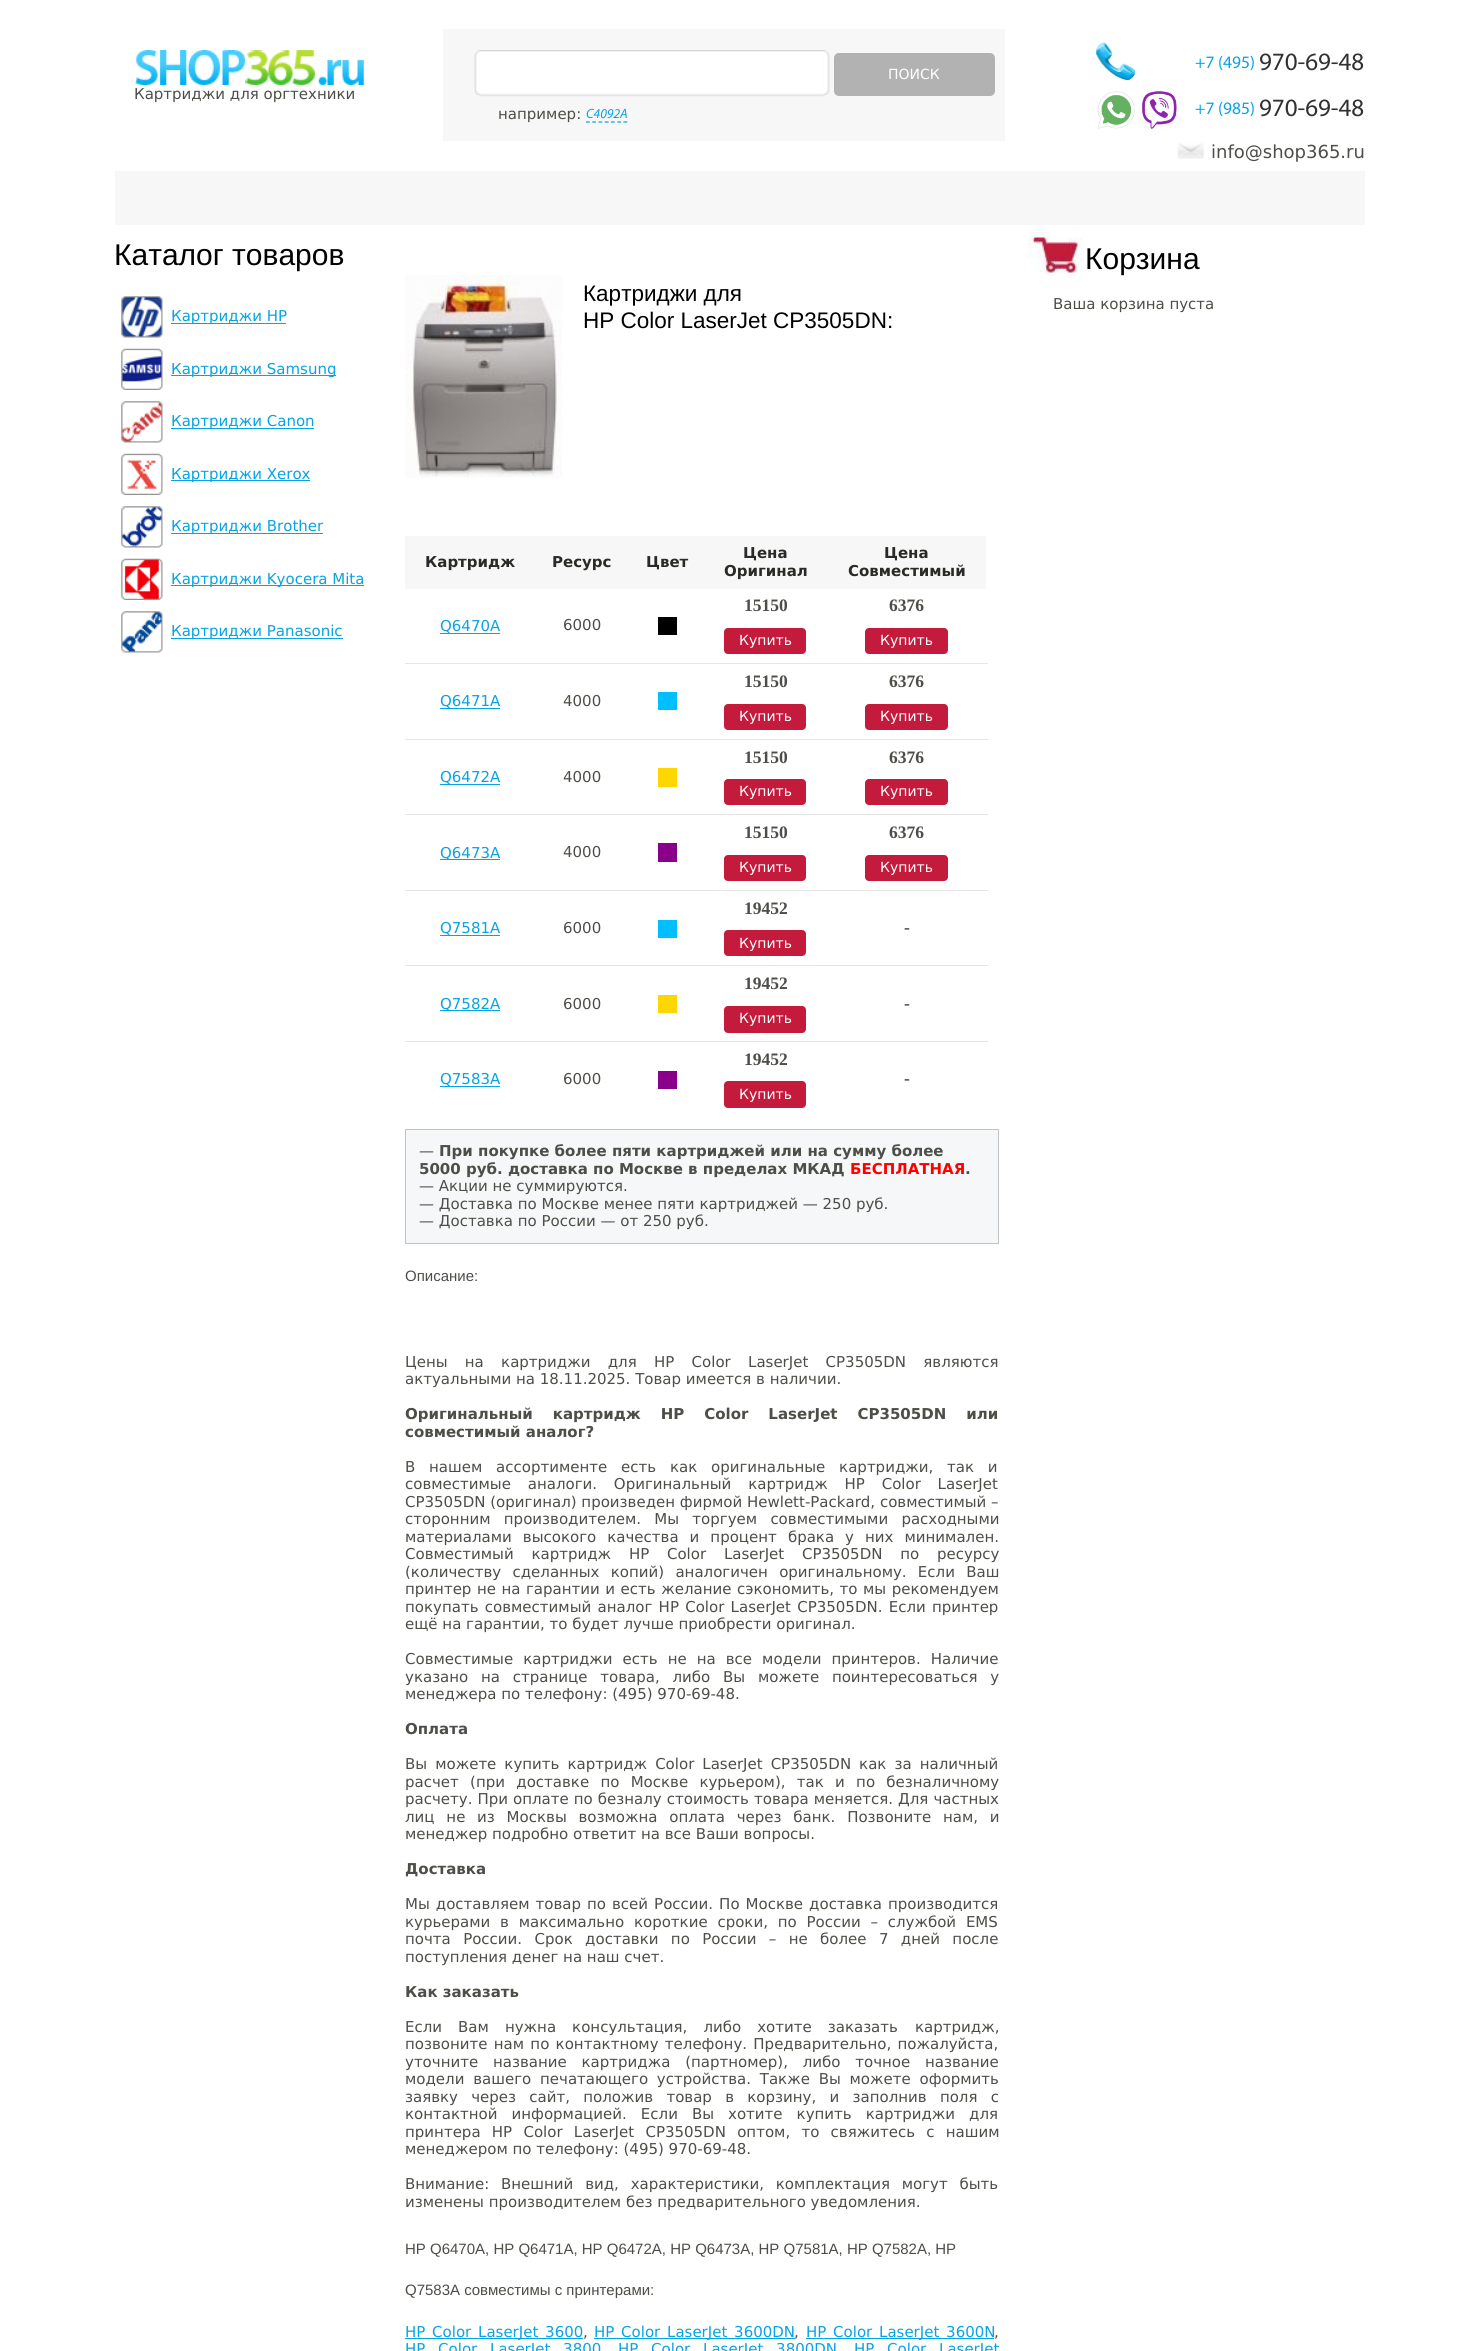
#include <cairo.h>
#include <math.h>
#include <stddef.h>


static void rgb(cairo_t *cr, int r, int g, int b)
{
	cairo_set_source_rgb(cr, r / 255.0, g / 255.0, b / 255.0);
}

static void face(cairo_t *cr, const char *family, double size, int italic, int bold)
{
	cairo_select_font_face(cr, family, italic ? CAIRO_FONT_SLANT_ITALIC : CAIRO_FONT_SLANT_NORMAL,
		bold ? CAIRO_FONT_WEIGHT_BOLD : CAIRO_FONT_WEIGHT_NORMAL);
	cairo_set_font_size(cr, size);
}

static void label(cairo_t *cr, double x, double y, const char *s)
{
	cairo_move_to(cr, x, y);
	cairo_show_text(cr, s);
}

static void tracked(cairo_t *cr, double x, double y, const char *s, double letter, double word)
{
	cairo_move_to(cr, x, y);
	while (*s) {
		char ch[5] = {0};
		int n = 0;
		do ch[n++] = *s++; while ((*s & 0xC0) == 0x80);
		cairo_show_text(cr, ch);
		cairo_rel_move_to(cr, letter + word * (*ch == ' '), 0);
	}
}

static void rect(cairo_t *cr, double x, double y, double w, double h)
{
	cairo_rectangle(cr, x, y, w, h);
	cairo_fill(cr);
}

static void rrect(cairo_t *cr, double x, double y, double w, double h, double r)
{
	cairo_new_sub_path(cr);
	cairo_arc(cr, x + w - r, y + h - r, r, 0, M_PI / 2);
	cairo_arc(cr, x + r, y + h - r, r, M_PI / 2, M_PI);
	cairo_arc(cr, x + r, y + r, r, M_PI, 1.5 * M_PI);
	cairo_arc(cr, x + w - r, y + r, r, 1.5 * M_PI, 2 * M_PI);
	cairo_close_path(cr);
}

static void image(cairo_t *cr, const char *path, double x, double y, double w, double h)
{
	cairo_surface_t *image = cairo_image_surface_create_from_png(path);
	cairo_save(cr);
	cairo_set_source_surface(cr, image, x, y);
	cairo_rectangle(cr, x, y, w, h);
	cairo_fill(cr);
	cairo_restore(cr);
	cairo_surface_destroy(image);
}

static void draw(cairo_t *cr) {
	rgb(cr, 255, 255, 255);
	cairo_paint(cr);
	image(cr, "image0.png", 135, 50, 230, 35);
	face(cr, "DejaVu Sans", 15, 0, 0);
	rgb(cr, 76, 78, 72);
	label(cr, 134, 99, "Картриджи для оргтехники");
	rgb(cr, 247, 247, 247);
	rect(cr, 443, 29, 562, 112);
	image(cr, "image1.png", 474, 50, 350, 47);
	image(cr, "image2.png", 824, 50, 6, 46);
	rgb(cr, 178, 178, 178);
	rrect(cr, 834, 53, 161, 43, 5);
	cairo_fill(cr);
	face(cr, "DejaVu Sans", 14, 0, 0);
	rgb(cr, 255, 255, 255);
	label(cr, 888, 79, "ПОИСК");
	face(cr, "DejaVu Sans", 15, 0, 0);
	rgb(cr, 76, 78, 72);
	label(cr, 498, 119, "например:");
	face(cr, "Myriad", 13.5, 1, 0);
	rgb(cr, 7, 163, 228);
	label(cr, 586, 118, "C4092A");
	cairo_new_path(cr);
	cairo_move_to(cr, 586, 122);
	cairo_line_to(cr, 627.5, 122);
	cairo_set_line_width(cr, 1.2);
	cairo_set_dash(cr, (double[]){3.75, 2.5}, 2, 0);
	cairo_stroke(cr);
	image(cr, "image3.png", 1096, 42, 39, 38);
	face(cr, "Myriad", 17.5, 0, 0);
	label(cr, 1195, 68, "+7 (495)");
	face(cr, "Myriad", 25, 0, 0);
	rgb(cr, 49, 49, 49);
	label(cr, 1259, 70, "970-69-48");
	image(cr, "image4.png", 1097, 91, 38, 38);
	image(cr, "image5.png", 1142, 91, 35, 38);
	face(cr, "Myriad", 17.5, 0, 0);
	rgb(cr, 7, 163, 228);
	label(cr, 1195, 114, "+7 (985)");
	face(cr, "Myriad", 25, 0, 0);
	rgb(cr, 49, 49, 49);
	label(cr, 1259, 116, "970-69-48");
	image(cr, "image6.png", 1177, 142, 27, 17);
	face(cr, "DejaVu Sans", 18, 0, 0);
	rgb(cr, 76, 78, 72);
	label(cr, 1211, 158, "info@shop365.ru");
	rgb(cr, 247, 247, 247);
	rect(cr, 115, 171, 1250, 54);
	face(cr, "Liberation Sans", 30, 0, 0);
	rgb(cr, 0, 0, 0);
	label(cr, 114, 265, "Каталог товаров");
	image(cr, "image7.png", 121, 296, 42, 42);
	rgb(cr, 7, 163, 228);
	rect(cr, 171, 323, 115, 1);
	face(cr, "DejaVu Sans", 15, 0, 0);
	label(cr, 171, 321, "Картриджи HP");
	image(cr, "image8.png", 121, 348, 42, 42);
	rect(cr, 171, 375, 165, 1);
	label(cr, 171, 374, "Картриджи Samsung");
	image(cr, "image9.png", 121, 401, 42, 42);
	rect(cr, 171, 428, 143, 1);
	label(cr, 171, 426, "Картриджи Canon");
	image(cr, "image10.png", 121, 453, 42, 42);
	rect(cr, 171, 480, 139, 1);
	label(cr, 171, 479, "Картриджи Xerox");
	image(cr, "image11.png", 121, 506, 42, 42);
	rect(cr, 171, 533, 152, 1);
	label(cr, 171, 531, "Картриджи Brother");
	image(cr, "image12.png", 121, 558, 42, 42);
	rect(cr, 171, 585, 193, 1);
	label(cr, 171, 584, "Картриджи Kyocera Mita");
	image(cr, "image13.png", 121, 611, 42, 42);
	rect(cr, 171, 638, 172, 1);
	label(cr, 171, 636, "Картриджи Panasonic");
	image(cr, "image14.png", 405, 275, 157, 203);
	face(cr, "Liberation Sans", 22.5, 0, 0);
	rgb(cr, 0, 0, 0);
	label(cr, 583, 301, "Картриджи для");
	label(cr, 583, 328, "HP Color LaserJet CP3505DN:");
	rgb(cr, 247, 247, 247);
	rect(cr, 405, 536, 581, 53);
	face(cr, "DejaVu Sans", 15, 0, 1);
	rgb(cr, 42, 43, 39);
	label(cr, 425, 567, "Картридж");
	label(cr, 552, 567, "Ресурс");
	label(cr, 646, 567, "Цвет");
	label(cr, 743, 558, "Цена");
	label(cr, 724, 576, "Оригинал");
	label(cr, 884, 558, "Цена");
	label(cr, 848, 576, "Совместимый");
	face(cr, "DejaVu Sans", 15, 0, 0);
	rgb(cr, 7, 163, 228);
	label(cr, 440, 631, "Q6470A");
	rect(cr, 440, 633, 60, 1);
	rgb(cr, 76, 78, 72);
	label(cr, 563, 630, "6000");
	rgb(cr, 0, 0, 0);
	rect(cr, 658, 617, 19, 18);
	face(cr, "Liberation Serif", 17.5, 0, 1);
	rgb(cr, 76, 78, 72);
	label(cr, 744, 611, "15150");
	rgb(cr, 196, 27, 60);
	rrect(cr, 724, 628, 82, 26, 4);
	cairo_fill(cr);
	face(cr, "DejaVu Sans", 14, 0, 0);
	rgb(cr, 255, 255, 255);
	label(cr, 739, 645, "Купить");
	face(cr, "Liberation Serif", 17.5, 0, 1);
	rgb(cr, 76, 78, 72);
	label(cr, 889, 611, "6376");
	rgb(cr, 196, 27, 60);
	rrect(cr, 865, 628, 83, 26, 4);
	cairo_fill(cr);
	face(cr, "DejaVu Sans", 14, 0, 0);
	rgb(cr, 255, 255, 255);
	label(cr, 880, 645, "Купить");
	rgb(cr, 230, 230, 230);
	rect(cr, 405, 663, 583, 1);
	face(cr, "DejaVu Sans", 15, 0, 0);
	rgb(cr, 7, 163, 228);
	label(cr, 440, 706, "Q6471A");
	rect(cr, 440, 708, 60, 1);
	rgb(cr, 76, 78, 72);
	label(cr, 563, 706, "4000");
	rgb(cr, 0, 191, 255);
	rect(cr, 658, 692, 19, 18);
	face(cr, "Liberation Serif", 17.5, 0, 1);
	rgb(cr, 76, 78, 72);
	label(cr, 744, 687, "15150");
	rgb(cr, 196, 27, 60);
	rrect(cr, 724, 704, 82, 26, 4);
	cairo_fill(cr);
	face(cr, "DejaVu Sans", 14, 0, 0);
	rgb(cr, 255, 255, 255);
	label(cr, 739, 721, "Купить");
	face(cr, "Liberation Serif", 17.5, 0, 1);
	rgb(cr, 76, 78, 72);
	label(cr, 889, 687, "6376");
	rgb(cr, 196, 27, 60);
	rrect(cr, 865, 704, 83, 26, 4);
	cairo_fill(cr);
	face(cr, "DejaVu Sans", 14, 0, 0);
	rgb(cr, 255, 255, 255);
	label(cr, 880, 721, "Купить");
	rgb(cr, 230, 230, 230);
	rect(cr, 405, 739, 583, 1);
	face(cr, "DejaVu Sans", 15, 0, 0);
	rgb(cr, 7, 163, 228);
	label(cr, 440, 782, "Q6472A");
	rect(cr, 440, 784, 60, 1);
	rgb(cr, 76, 78, 72);
	label(cr, 563, 782, "4000");
	rgb(cr, 255, 215, 0);
	rect(cr, 658, 768, 19, 19);
	face(cr, "Liberation Serif", 17.5, 0, 1);
	rgb(cr, 76, 78, 72);
	label(cr, 744, 763, "15150");
	rgb(cr, 196, 27, 60);
	rrect(cr, 724, 779, 82, 26, 4);
	cairo_fill(cr);
	face(cr, "DejaVu Sans", 14, 0, 0);
	rgb(cr, 255, 255, 255);
	label(cr, 739, 796, "Купить");
	face(cr, "Liberation Serif", 17.5, 0, 1);
	rgb(cr, 76, 78, 72);
	label(cr, 889, 763, "6376");
	rgb(cr, 196, 27, 60);
	rrect(cr, 865, 779, 83, 26, 4);
	cairo_fill(cr);
	face(cr, "DejaVu Sans", 14, 0, 0);
	rgb(cr, 255, 255, 255);
	label(cr, 880, 796, "Купить");
	rgb(cr, 230, 230, 230);
	rect(cr, 405, 814, 583, 1);
	rgb(cr, 7, 163, 228);
	rect(cr, 440, 859, 60, 1);
	face(cr, "DejaVu Sans", 15, 0, 0);
	label(cr, 440, 858, "Q6473A");
	rgb(cr, 76, 78, 72);
	label(cr, 563, 857, "4000");
	rgb(cr, 139, 0, 139);
	rect(cr, 658, 843, 19, 19);
	face(cr, "Liberation Serif", 17.5, 0, 1);
	rgb(cr, 76, 78, 72);
	label(cr, 744, 838, "15150");
	rgb(cr, 196, 27, 60);
	rrect(cr, 724, 855, 82, 26, 4);
	cairo_fill(cr);
	face(cr, "DejaVu Sans", 14, 0, 0);
	rgb(cr, 255, 255, 255);
	label(cr, 739, 872, "Купить");
	face(cr, "Liberation Serif", 17.5, 0, 1);
	rgb(cr, 76, 78, 72);
	label(cr, 889, 838, "6376");
	rgb(cr, 196, 27, 60);
	rrect(cr, 865, 855, 83, 26, 4);
	cairo_fill(cr);
	face(cr, "DejaVu Sans", 14, 0, 0);
	rgb(cr, 255, 255, 255);
	label(cr, 880, 872, "Купить");
	rgb(cr, 230, 230, 230);
	rect(cr, 405, 890, 583, 1);
	face(cr, "DejaVu Sans", 15, 0, 0);
	rgb(cr, 7, 163, 228);
	label(cr, 440, 933, "Q7581A");
	rect(cr, 440, 935, 60, 1);
	rgb(cr, 76, 78, 72);
	label(cr, 563, 933, "6000");
	rgb(cr, 0, 191, 255);
	rect(cr, 658, 920, 19, 18);
	face(cr, "Liberation Serif", 17.5, 0, 1);
	rgb(cr, 76, 78, 72);
	label(cr, 744, 914, "19452");
	rgb(cr, 196, 27, 60);
	rrect(cr, 724, 930, 82, 26, 4);
	cairo_fill(cr);
	face(cr, "DejaVu Sans", 14, 0, 0);
	rgb(cr, 255, 255, 255);
	label(cr, 739, 948, "Купить");
	face(cr, "Liberation Serif", 17.5, 0, 1);
	rgb(cr, 76, 78, 72);
	label(cr, 904, 933, "-");
	rgb(cr, 230, 230, 230);
	rect(cr, 405, 965, 583, 1);
	rgb(cr, 7, 163, 228);
	rect(cr, 440, 1010, 60, 1);
	face(cr, "DejaVu Sans", 15, 0, 0);
	label(cr, 440, 1009, "Q7582A");
	rgb(cr, 76, 78, 72);
	label(cr, 563, 1009, "6000");
	rgb(cr, 255, 215, 0);
	rect(cr, 658, 995, 19, 18);
	face(cr, "Liberation Serif", 17.5, 0, 1);
	rgb(cr, 76, 78, 72);
	label(cr, 744, 989, "19452");
	rgb(cr, 196, 27, 60);
	rrect(cr, 724, 1006, 82, 27, 4);
	cairo_fill(cr);
	face(cr, "DejaVu Sans", 14, 0, 0);
	rgb(cr, 255, 255, 255);
	label(cr, 739, 1023, "Купить");
	face(cr, "Liberation Serif", 17.5, 0, 1);
	rgb(cr, 76, 78, 72);
	label(cr, 904, 1009, "-");
	rgb(cr, 230, 230, 230);
	rect(cr, 405, 1041, 583, 1);
	face(cr, "DejaVu Sans", 15, 0, 0);
	rgb(cr, 7, 163, 228);
	label(cr, 440, 1084, "Q7583A");
	rect(cr, 440, 1086, 60, 1);
	rgb(cr, 76, 78, 72);
	label(cr, 563, 1084, "6000");
	rgb(cr, 139, 0, 139);
	rect(cr, 658, 1071, 19, 18);
	face(cr, "Liberation Serif", 17.5, 0, 1);
	rgb(cr, 76, 78, 72);
	label(cr, 744, 1065, "19452");
	rgb(cr, 196, 27, 60);
	rrect(cr, 724, 1081, 82, 27, 4);
	cairo_fill(cr);
	face(cr, "DejaVu Sans", 14, 0, 0);
	rgb(cr, 255, 255, 255);
	label(cr, 739, 1099, "Купить");
	face(cr, "Liberation Serif", 17.5, 0, 1);
	rgb(cr, 76, 78, 72);
	label(cr, 904, 1084, "-");
	rgb(cr, 246, 247, 248);
	cairo_rectangle(cr, 405.5, 1129.5, 593, 114);
	cairo_fill_preserve(cr);
	rgb(cr, 194, 195, 197);
	cairo_set_line_width(cr, 1);
	cairo_set_dash(cr, NULL, 0, 0);
	cairo_stroke(cr);
	face(cr, "DejaVu Sans", 15, 0, 0);
	rgb(cr, 76, 78, 72);
	label(cr, 419, 1156, "—");
	face(cr, "DejaVu Sans", 15, 0, 1);
	label(cr, 439, 1156, "При покупке более пяти картриджей или на сумму более");
	label(cr, 419, 1174, "5000 руб. доставка по Москве в пределах МКАД");
	rgb(cr, 255, 0, 0);
	label(cr, 850, 1174, "БЕСПЛАТНАЯ");
	rgb(cr, 76, 78, 72);
	label(cr, 965, 1174, ".");
	face(cr, "DejaVu Sans", 15, 0, 0);
	label(cr, 419, 1191, "— Акции не суммируются.");
	label(cr, 419, 1209, "— Доставка по Москве менее пяти картриджей — 250 руб.");
	label(cr, 419, 1226, "— Доставка по России — от 250 руб.");
	face(cr, "Liberation Sans", 15, 0, 0);
	label(cr, 405, 1281, "Описание:");
	face(cr, "DejaVu Sans", 15, 0, 0);
	tracked(cr, 405, 1367, "Цены на картриджи для HP Color LaserJet CP3505DN являются", 0, 12.5);
	label(cr, 405, 1384, "актуальными на 18.11.2025. Товар имеется в наличии.");
	face(cr, "DejaVu Sans", 15, 0, 1);
	tracked(cr, 405, 1419, "Оригинальный картридж HP Color LaserJet CP3505DN или", 0, 14.75);
	label(cr, 405, 1437, "совместимый аналог?");
	face(cr, "DejaVu Sans", 15, 0, 0);
	tracked(cr, 405, 1472, "В нашем ассортименте есть как оригинальные картриджи, так и", 0, 9);
	tracked(cr, 405, 1489, "совместимые аналоги. Оригинальный картридж HP Color LaserJet", 0, 12);
	label(cr, 405, 1507, "CP3505DN (оригинал) произведен фирмой Hewlett-Packard, совместимый –");
	tracked(cr, 405, 1524, "сторонним производителем. Мы торгуем совместимыми расходными", 0, 8.5);
	tracked(cr, 405, 1542, "материалами высокого качества и процент брака у них минимален.", 0, 6.25);
	tracked(cr, 405, 1559, "Совместимый картридж HP Color LaserJet CP3505DN по ресурсу", 0, 13);
	tracked(cr, 405, 1577, "(количеству сделанных копий) аналогичен оригинальному. Если Ваш", 0, 6.5);
	tracked(cr, 405, 1594, "принтер не на гарантии и есть желание сэкономить, то мы рекомендуем", 0, 0.75);
	tracked(cr, 405, 1612, "покупать совместимый аналог HP Color LaserJet CP3505DN. Если принтер", 0, 1.5);
	label(cr, 405, 1629, "ещё на гарантии, то будет лучше приобрести оригинал.");
	tracked(cr, 405, 1664, "Совместимые картриджи есть не на все модели принтеров. Наличие", 0, 5.25);
	tracked(cr, 405, 1682, "указано на странице товара, либо Вы можете поинтересоваться у", 0, 8);
	label(cr, 405, 1699, "менеджера по телефону: (495) 970-69-48.");
	face(cr, "DejaVu Sans", 15, 0, 1);
	label(cr, 405, 1734, "Оплата");
	face(cr, "DejaVu Sans", 15, 0, 0);
	tracked(cr, 405, 1769, "Вы можете купить картридж Color LaserJet CP3505DN как за наличный", 0, 3.25);
	tracked(cr, 405, 1787, "расчет (при доставке по Москве курьером), так и по безналичному", 0, 6.5);
	tracked(cr, 405, 1804, "расчету. При оплате по безналу стоимость товара меняется. Для частных", 0, 0.25);
	tracked(cr, 405, 1822, "лиц не из Москвы возможна оплата через банк. Позвоните нам, и", 0, 7);
	label(cr, 405, 1839, "менеджер подробно ответит на все Ваши вопросы.");
	face(cr, "DejaVu Sans", 15, 0, 1);
	label(cr, 405, 1874, "Доставка");
	face(cr, "DejaVu Sans", 15, 0, 0);
	tracked(cr, 405, 1909, "Мы доставляем товар по всей России. По Москве доставка производится", 0, 1.25);
	tracked(cr, 405, 1927, "курьерами в максимально короткие сроки, по России – службой EMS", 0, 5);
	tracked(cr, 405, 1944, "почта России. Срок доставки по России – не более 7 дней после", 0, 7.6);
	label(cr, 405, 1962, "поступления денег на наш счет.");
	face(cr, "DejaVu Sans", 15, 0, 1);
	label(cr, 405, 1997, "Как заказать");
	face(cr, "DejaVu Sans", 15, 0, 0);
	tracked(cr, 405, 2032, "Если Вам нужна консультация, либо хотите заказать", 0, 11.25);
	label(cr, 915, 2032, "картридж,");
	tracked(cr, 405, 2049, "позвоните нам по контактному телефону. Предварительно, пожалуйста,", 0, 1.5);
	tracked(cr, 405, 2067, "уточните название картриджа (партномер), либо точное название", 0, 10);
	tracked(cr, 405, 2084, "модели вашего печатающего устройства. Также Вы можете оформить", 0, 4);
	tracked(cr, 405, 2102, "заявку через сайт, положив товар в корзину, и заполнив поля с", 0, 8.5);
	tracked(cr, 405, 2119, "контактной информацией. Если Вы хотите купить картриджи для", 0, 9.25);
	tracked(cr, 405, 2137, "принтера HP Color LaserJet CP3505DN оптом, то свяжитесь с нашим", 0, 6.5);
	label(cr, 405, 2154, "менеджером по телефону: (495) 970-69-48.");
	label(cr, 405, 2189, "Внимание:");
	tracked(cr, 501, 2189, "Внешний вид, характеристики, комплектация могут быть", 0, 7);
	label(cr, 405, 2207, "изменены производителем без предварительного уведомления.");
	face(cr, "Liberation Sans", 15, 0, 0);
	label(cr, 405, 2254, "HP Q6470A, HP Q6471A, HP Q6472A, HP Q6473A, HP Q7581A, HP Q7582A, HP");
	label(cr, 405, 2295, "Q7583A совместимы с принтерами:");
	rgb(cr, 7, 163, 228);
	rect(cr, 405, 2338, 178, 1);
	face(cr, "DejaVu Sans", 15, 0, 0);
	tracked(cr, 405, 2337, "HP Color LaserJet 3600", 0, 2);
	rgb(cr, 76, 78, 72);
	label(cr, 583, 2337, ",");
	rgb(cr, 7, 163, 228);
	rect(cr, 594, 2338, 201, 1);
	tracked(cr, 594, 2337, "HP Color LaserJet 3600DN", 0, 2);
	rgb(cr, 76, 78, 72);
	label(cr, 794, 2337, ",");
	rgb(cr, 7, 163, 228);
	rect(cr, 806, 2338, 188, 1);
	tracked(cr, 806, 2337, "HP Color LaserJet 3600N", 0, 2);
	rgb(cr, 76, 78, 72);
	label(cr, 994, 2337, ",");
	rgb(cr, 7, 163, 228);
	tracked(cr, 405, 2354, "HP Color LaserJet 3800", 0, 8);
	tracked(cr, 618, 2354, "HP Color LaserJet 3800DN", 0, 8);
	tracked(cr, 854, 2354, "HP Color LaserJet", 0, 8);
	image(cr, "image15.png", 1027, 237, 56, 36);
	face(cr, "Liberation Sans", 30, 0, 0);
	rgb(cr, 0, 0, 0);
	label(cr, 1085, 269, "Корзина");
	face(cr, "DejaVu Sans", 15, 0, 0);
	rgb(cr, 76, 78, 72);
	label(cr, 1053, 309, "Ваша корзина пуста");
}

int main(void) {
	cairo_surface_t *surface = cairo_image_surface_create(CAIRO_FORMAT_RGB24, 1478, 2351);
	cairo_t *cr = cairo_create(surface);
	cairo_font_options_t *options = cairo_font_options_create();
	cairo_font_options_set_hint_metrics(options, CAIRO_HINT_METRICS_OFF);
	cairo_font_options_set_hint_style(options, CAIRO_HINT_STYLE_NONE);
	cairo_set_font_options(cr, options);
	cairo_set_miter_limit(cr, 4);
	draw(cr);
	cairo_surface_write_to_png(surface, "render.png");
	cairo_font_options_destroy(options);
	cairo_destroy(cr);
	cairo_surface_destroy(surface);
	return 0;
}
